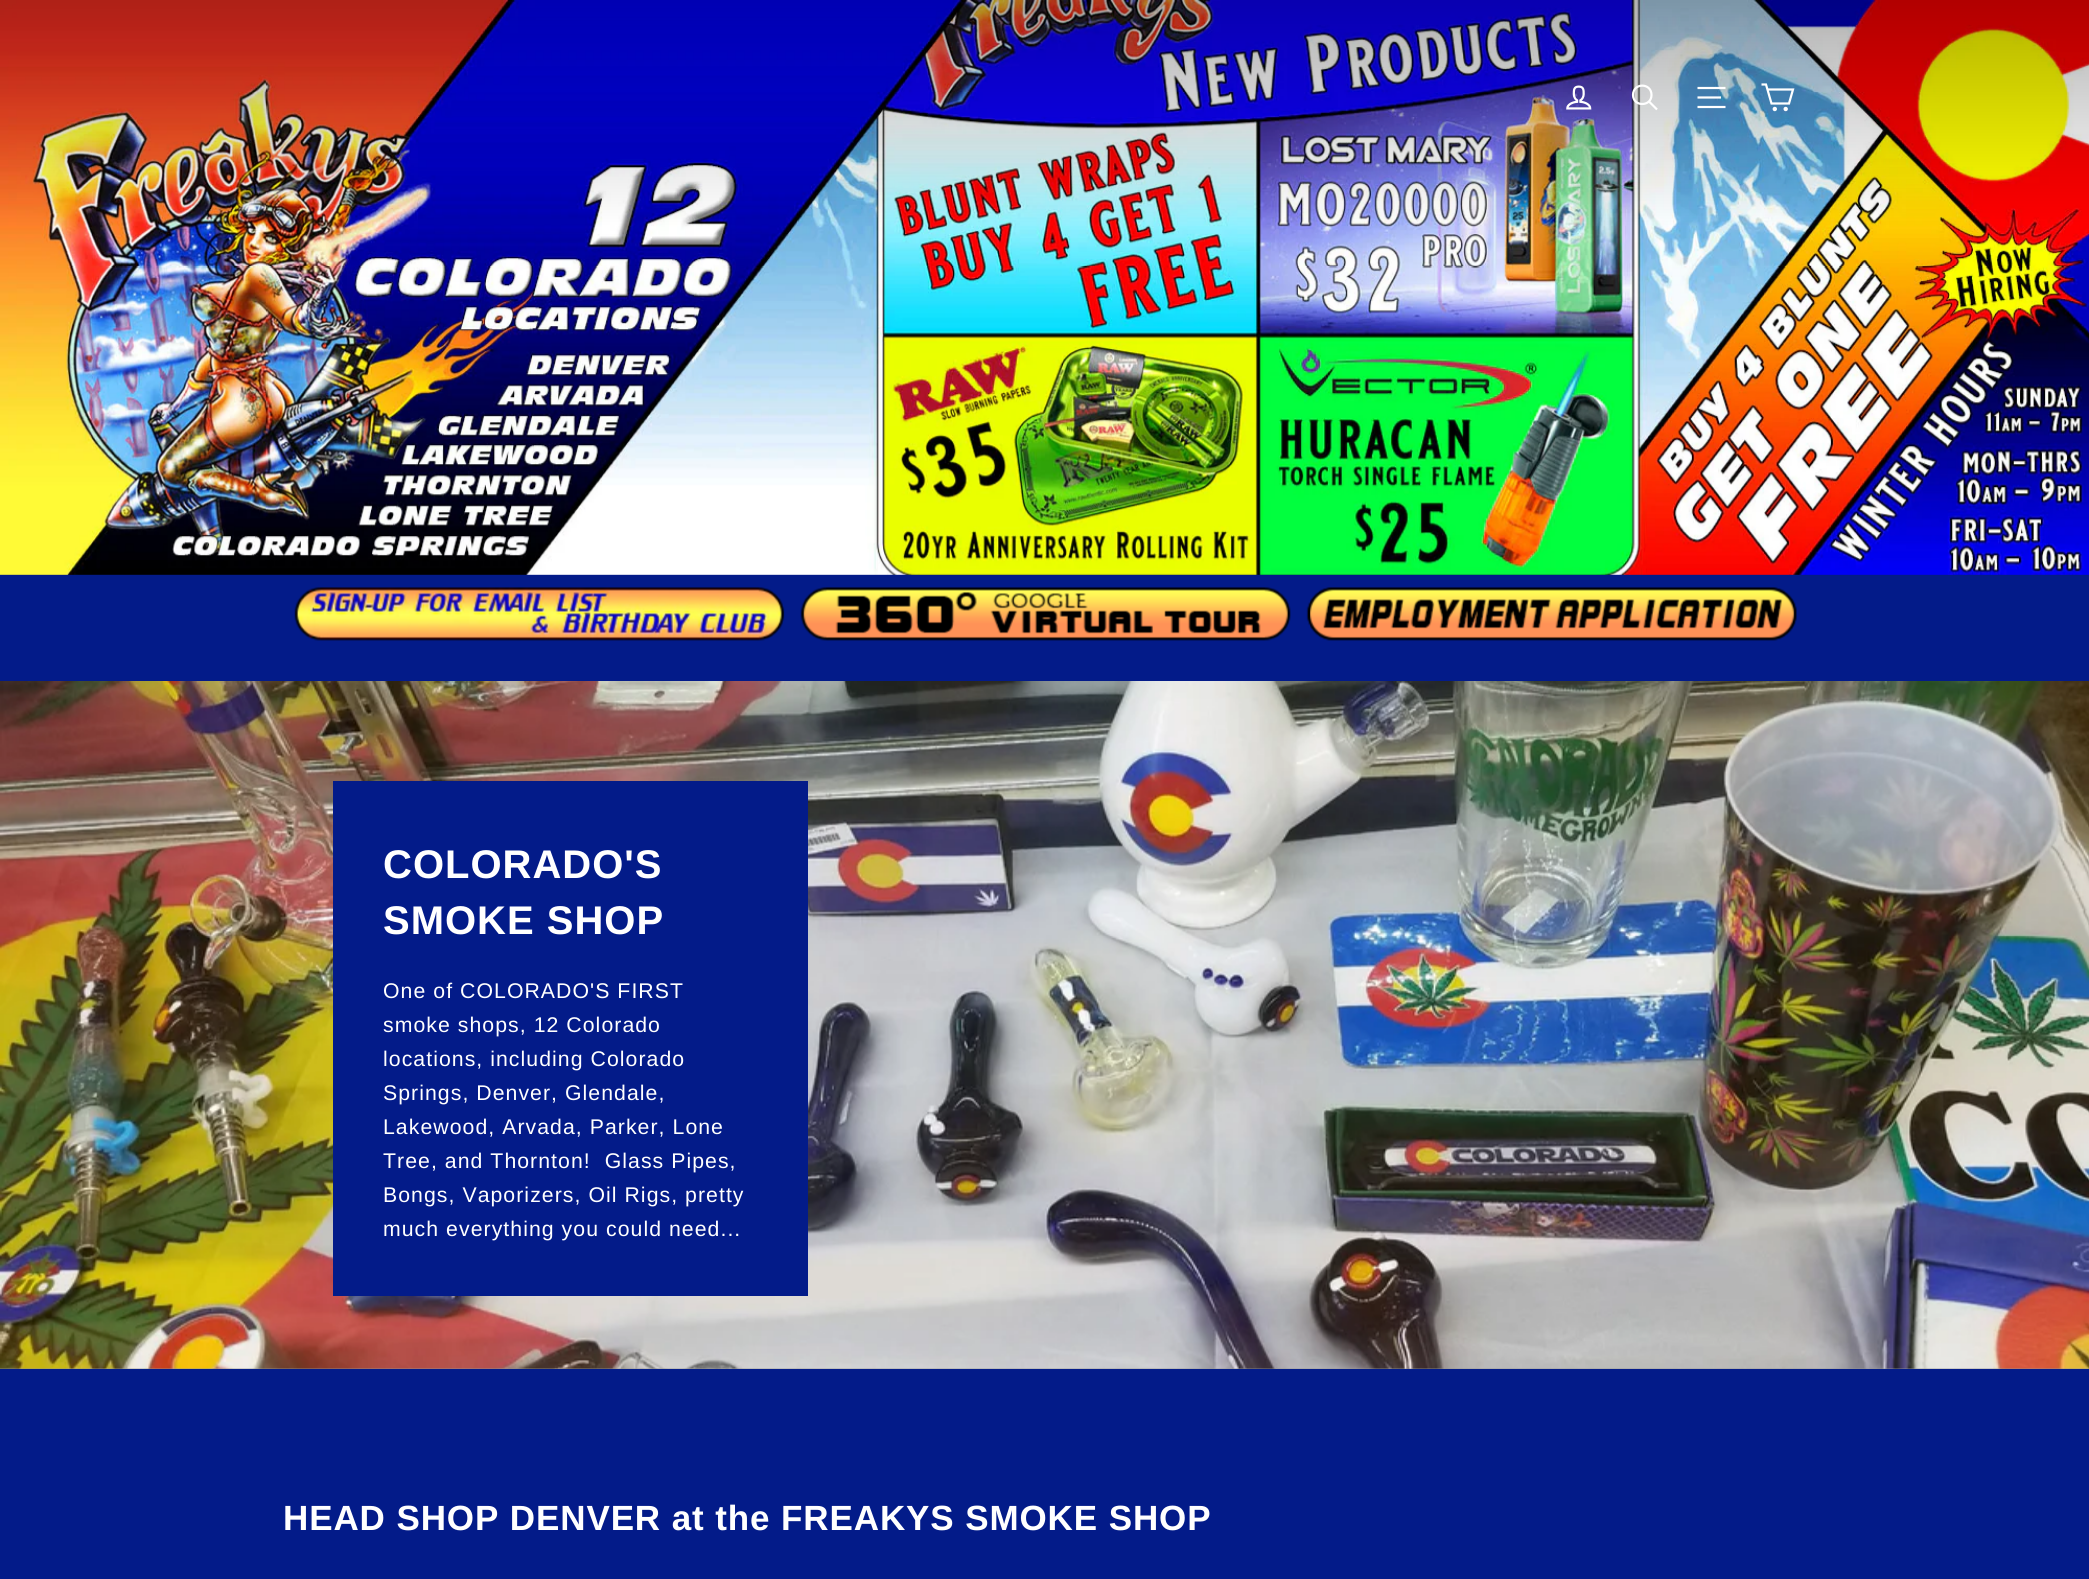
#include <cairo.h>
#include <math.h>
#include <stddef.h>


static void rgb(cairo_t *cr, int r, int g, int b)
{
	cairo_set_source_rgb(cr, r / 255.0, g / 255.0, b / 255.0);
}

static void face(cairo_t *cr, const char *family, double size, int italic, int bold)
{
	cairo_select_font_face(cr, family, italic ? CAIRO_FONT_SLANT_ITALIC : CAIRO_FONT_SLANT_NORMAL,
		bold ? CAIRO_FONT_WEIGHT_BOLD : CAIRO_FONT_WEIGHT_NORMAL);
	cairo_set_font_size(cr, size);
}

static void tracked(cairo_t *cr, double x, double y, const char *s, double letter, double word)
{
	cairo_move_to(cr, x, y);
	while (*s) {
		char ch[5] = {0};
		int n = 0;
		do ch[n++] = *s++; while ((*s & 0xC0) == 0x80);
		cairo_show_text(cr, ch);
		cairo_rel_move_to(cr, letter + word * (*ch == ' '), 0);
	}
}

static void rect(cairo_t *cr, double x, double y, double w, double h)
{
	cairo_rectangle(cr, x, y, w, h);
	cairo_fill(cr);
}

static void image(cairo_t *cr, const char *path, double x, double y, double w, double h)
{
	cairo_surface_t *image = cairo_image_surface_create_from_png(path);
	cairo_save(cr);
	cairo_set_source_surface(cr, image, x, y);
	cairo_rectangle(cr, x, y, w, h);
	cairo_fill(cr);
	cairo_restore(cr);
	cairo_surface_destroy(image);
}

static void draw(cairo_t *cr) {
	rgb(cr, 3, 27, 137);
	cairo_paint(cr);
	image(cr, "image1.png", 0, 0, 2089, 575);
	image(cr, "image0.png", 1566, 85, 26, 25);
	cairo_new_path(cr);
	cairo_move_to(cr, 1651.5, 95);
	cairo_curve_to(cr, 1651.5, 107, 1633, 107, 1633, 95);
	cairo_curve_to(cr, 1633, 82.5, 1651.5, 82.5, 1651.5, 95);
	cairo_close_path(cr);
	cairo_move_to(cr, 1657, 109.5);
	cairo_line_to(cr, 1649, 101.5);
	rgb(cr, 255, 255, 255);
	cairo_set_line_width(cr, 2.2);
	cairo_stroke(cr);
	cairo_new_path(cr);
	cairo_move_to(cr, 1697.5, 88);
	cairo_line_to(cr, 1725.5, 88);
	cairo_move_to(cr, 1697.5, 97.5);
	cairo_line_to(cr, 1721, 97.5);
	cairo_move_to(cr, 1697.5, 107);
	cairo_line_to(cr, 1725.5, 107);
	cairo_stroke(cr);
	cairo_new_path(cr);
	cairo_move_to(cr, 1767.5, 89.5);
	cairo_line_to(cr, 1793, 89.5);
	cairo_line_to(cr, 1789, 103.5);
	cairo_line_to(cr, 1771.5, 103.5);
	cairo_line_to(cr, 1766, 84.5);
	cairo_line_to(cr, 1761.5, 84.5);
	cairo_stroke(cr);
	cairo_arc(cr, 1774.8, 109, 1.1, 0, 2 * M_PI);
	cairo_stroke(cr);
	cairo_arc(cr, 1785.7, 109, 1.1, 0, 2 * M_PI);
	cairo_stroke(cr);
	image(cr, "image2.png", 294, 587, 491, 54);
	image(cr, "image3.png", 800, 587, 491, 54);
	image(cr, "image4.png", 1306, 587, 491, 54);
	rgb(cr, 150, 150, 150);
	rect(cr, 0, 1368, 2089, 1);
	image(cr, "image5.png", 0, 681, 2089, 688);
	rgb(cr, 3, 27, 137);
	rect(cr, 333, 781, 475, 515);
	face(cr, "Liberation Sans", 40, 0, 1);
	rgb(cr, 255, 255, 255);
	tracked(cr, 383, 878, "COLORADO'S", 1, 0);
	tracked(cr, 383, 934, "SMOKE SHOP", 1, 0);
	face(cr, "Liberation Sans", 21.25, 0, 0);
	tracked(cr, 383, 998, "One of COLORADO'S FIRST", 1.05, 0);
	tracked(cr, 383, 1032, "smoke shops, 12 Colorado", 1.05, 0);
	tracked(cr, 383, 1066, "locations, including Colorado", 1.05, 0);
	tracked(cr, 383, 1100, "Springs, Denver, Glendale,", 1.05, 0);
	tracked(cr, 383, 1134, "Lakewood, Arvada, Parker, Lone", 1.05, 0);
	tracked(cr, 383, 1168, "Tree, and Thornton!  Glass Pipes,", 1.05, 0);
	tracked(cr, 383, 1202, "Bongs, Vaporizers, Oil Rigs, pretty", 1.05, 0);
	tracked(cr, 383, 1236, "much everything you could need...", 1.05, 0);
	face(cr, "Liberation Sans", 35, 0, 1);
	tracked(cr, 283, 1530, "HEAD SHOP DENVER at the FREAKYS SMOKE SHOP", 0.9, 0);
}

int main(void) {
	cairo_surface_t *surface = cairo_image_surface_create(CAIRO_FORMAT_RGB24, 2089, 1579);
	cairo_t *cr = cairo_create(surface);
	cairo_font_options_t *options = cairo_font_options_create();
	cairo_font_options_set_hint_metrics(options, CAIRO_HINT_METRICS_OFF);
	cairo_font_options_set_hint_style(options, CAIRO_HINT_STYLE_NONE);
	cairo_set_font_options(cr, options);
	cairo_set_miter_limit(cr, 4);
	draw(cr);
	cairo_surface_write_to_png(surface, "render.png");
	cairo_font_options_destroy(options);
	cairo_destroy(cr);
	cairo_surface_destroy(surface);
	return 0;
}
